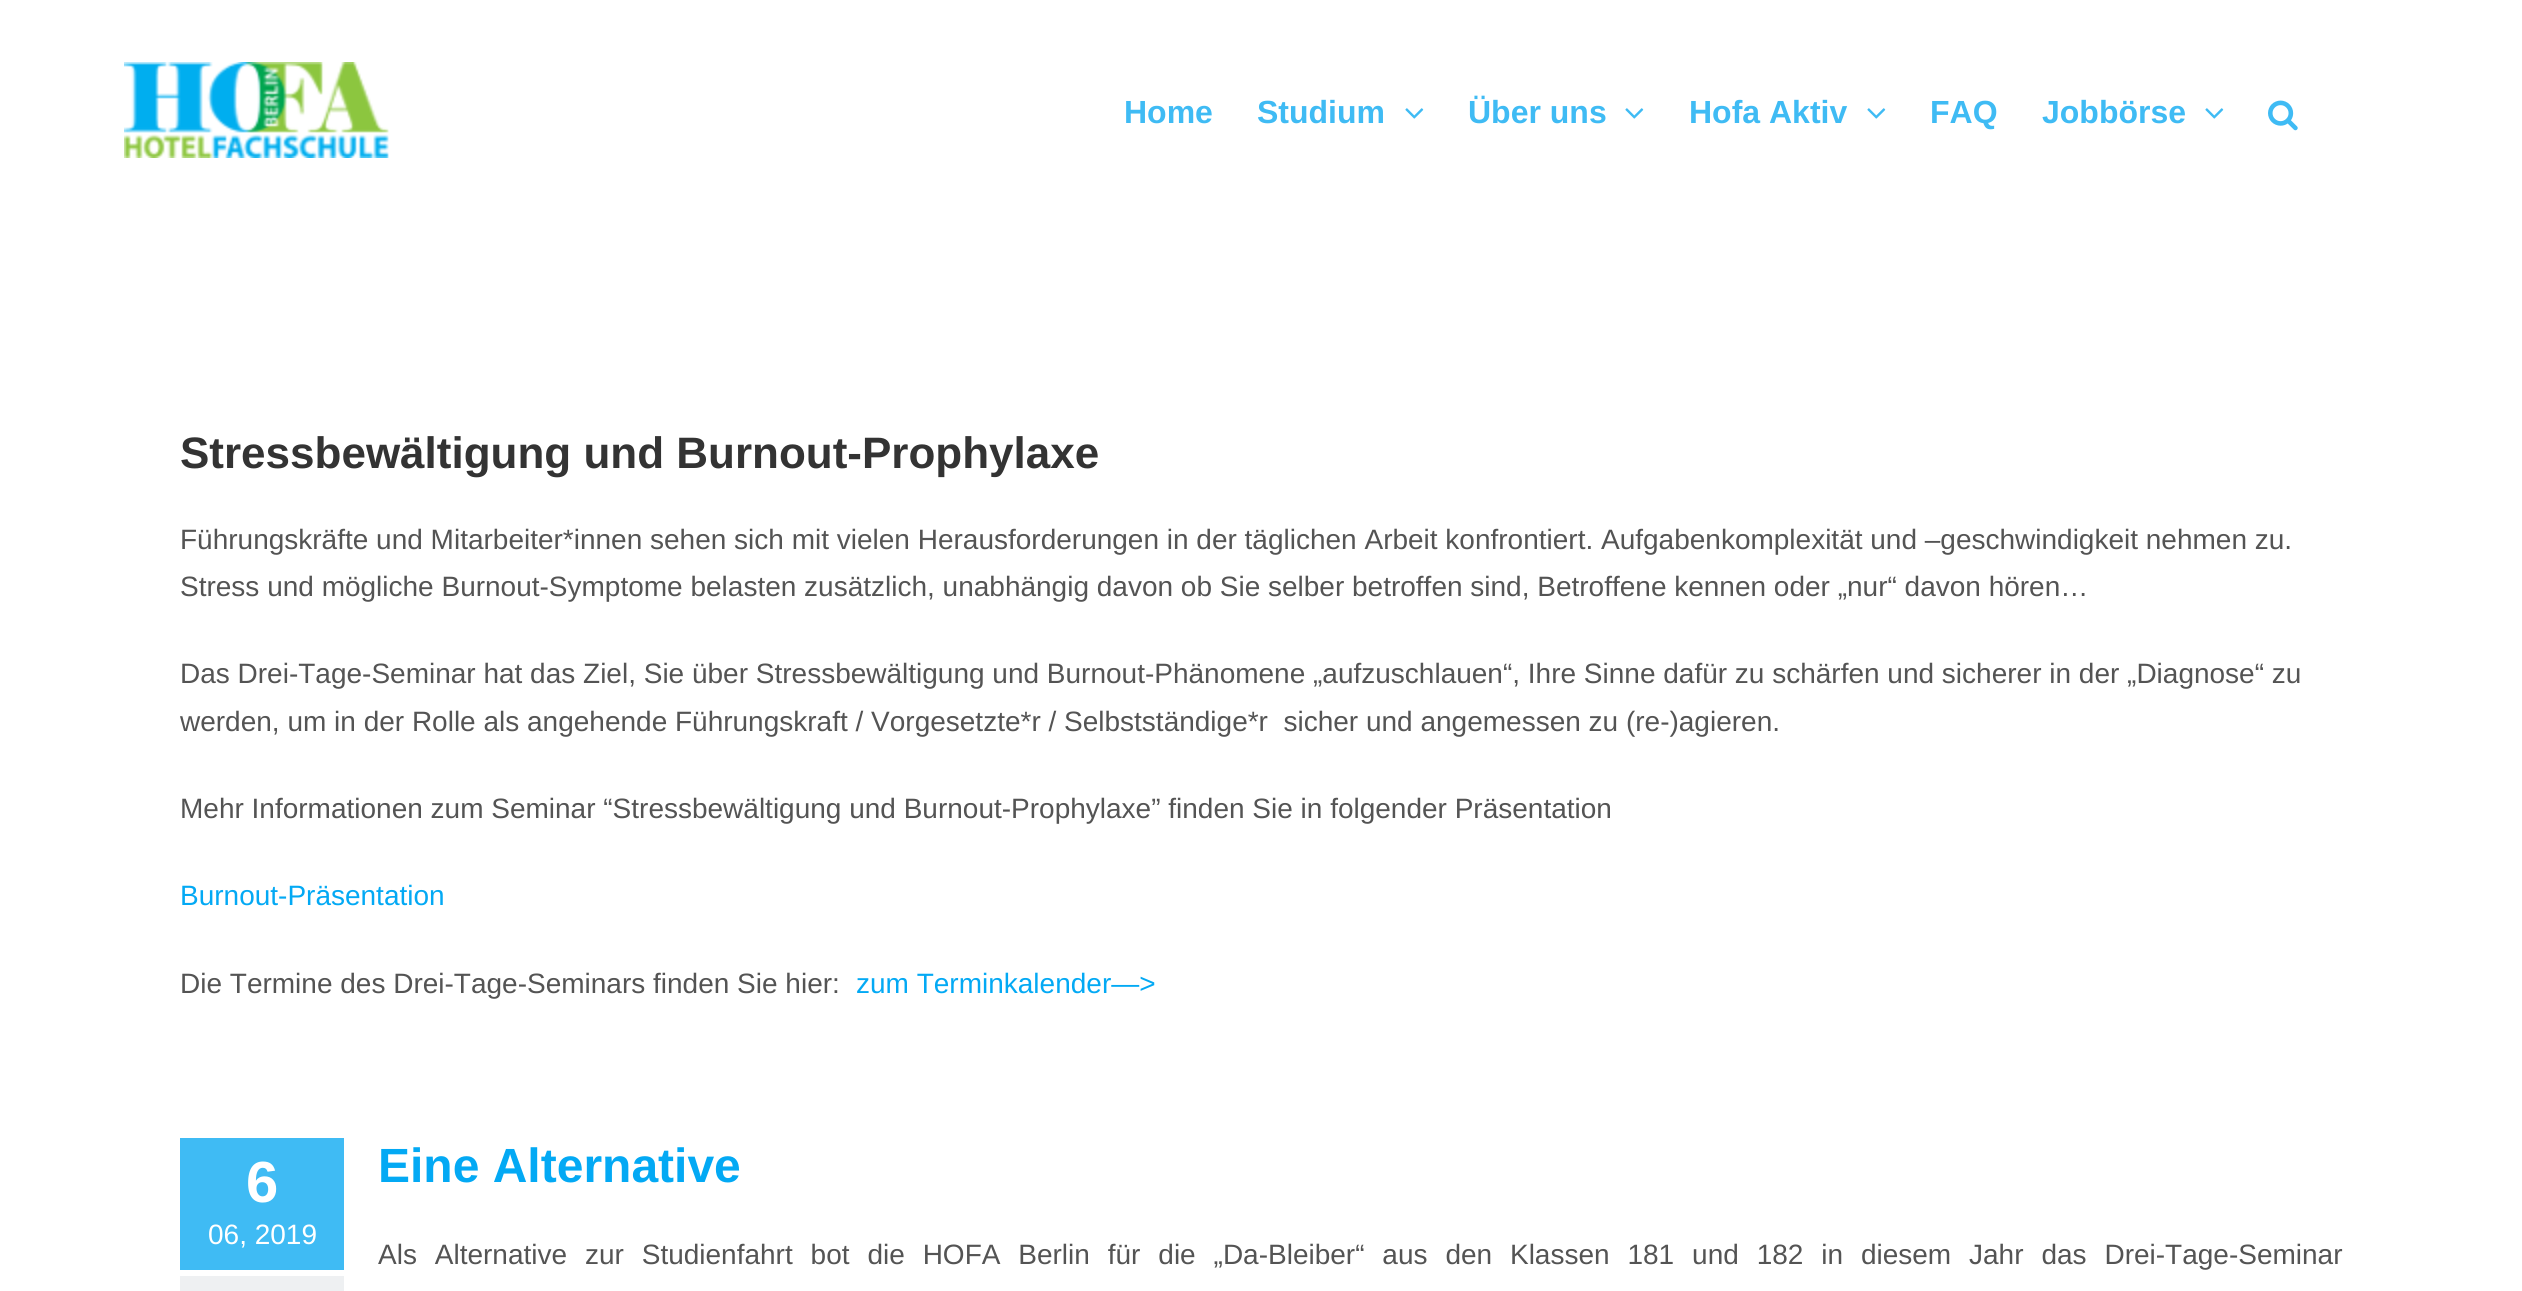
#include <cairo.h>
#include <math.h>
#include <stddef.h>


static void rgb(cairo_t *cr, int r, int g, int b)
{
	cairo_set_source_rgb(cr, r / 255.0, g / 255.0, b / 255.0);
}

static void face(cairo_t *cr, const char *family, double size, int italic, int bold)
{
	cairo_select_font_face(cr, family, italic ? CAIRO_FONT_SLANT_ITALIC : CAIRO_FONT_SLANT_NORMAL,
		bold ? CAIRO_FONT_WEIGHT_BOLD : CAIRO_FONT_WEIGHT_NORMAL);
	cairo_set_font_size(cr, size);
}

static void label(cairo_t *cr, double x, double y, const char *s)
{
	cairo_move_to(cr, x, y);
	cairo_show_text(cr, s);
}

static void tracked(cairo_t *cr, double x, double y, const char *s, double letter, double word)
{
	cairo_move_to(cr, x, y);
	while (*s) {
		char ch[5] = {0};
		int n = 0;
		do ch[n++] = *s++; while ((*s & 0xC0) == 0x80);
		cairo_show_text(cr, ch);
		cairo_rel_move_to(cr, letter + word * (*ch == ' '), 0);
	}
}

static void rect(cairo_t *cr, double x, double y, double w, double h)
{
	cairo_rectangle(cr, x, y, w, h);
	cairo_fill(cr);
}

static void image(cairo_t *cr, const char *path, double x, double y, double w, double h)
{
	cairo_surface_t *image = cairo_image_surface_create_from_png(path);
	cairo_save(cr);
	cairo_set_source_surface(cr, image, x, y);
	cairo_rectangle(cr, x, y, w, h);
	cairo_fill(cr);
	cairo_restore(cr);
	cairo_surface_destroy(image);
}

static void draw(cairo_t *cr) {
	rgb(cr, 255, 255, 255);
	cairo_paint(cr);
	image(cr, "image0.png", 124, 62, 265, 96);
	face(cr, "Liberation Sans", 32, 0, 1);
	rgb(cr, 63, 187, 244);
	label(cr, 1124, 123, "Home");
	label(cr, 1257, 123, "Studium");
	image(cr, "image1.png", 1405, 108, 19, 11);
	label(cr, 1468, 123, "Über uns");
	image(cr, "image1.png", 1625, 108, 19, 11);
	label(cr, 1689, 123, "Hofa Aktiv");
	image(cr, "image1.png", 1867, 108, 19, 11);
	label(cr, 1930, 123, "FAQ");
	label(cr, 2042, 123, "Jobbörse");
	image(cr, "image1.png", 2205, 108, 19, 11);
	image(cr, "image2.png", 2268, 100, 30, 31);
	face(cr, "Liberation Sans", 44, 0, 1);
	rgb(cr, 51, 51, 51);
	label(cr, 180, 468, "Stressbewältigung und Burnout-Prophylaxe");
	face(cr, "Liberation Sans", 28, 0, 0);
	rgb(cr, 84, 84, 84);
	label(cr, 180, 549, "Führungskräfte und Mitarbeiter*innen sehen sich mit vielen Herausforderungen in der täglichen Arbeit konfrontiert. Aufgabenkomplexität und –geschwindigkeit nehmen zu.");
	label(cr, 180, 596, "Stress und mögliche Burnout-Symptome belasten zusätzlich, unabhängig davon ob Sie selber betroffen sind, Betroffene kennen oder „nur“ davon hören…");
	label(cr, 180, 683, "Das Drei-Tage-Seminar hat das Ziel, Sie über Stressbewältigung und Burnout-Phänomene „aufzuschlauen“, Ihre Sinne dafür zu schärfen und sicherer in der „Diagnose“ zu");
	label(cr, 180, 731, "werden, um in der Rolle als angehende Führungskraft / Vorgesetzte*r / Selbstständige*r  sicher und angemessen zu (re-)agieren.");
	label(cr, 180, 818, "Mehr Informationen zum Seminar “Stressbewältigung und Burnout-Prophylaxe” finden Sie in folgender Präsentation");
	rgb(cr, 3, 169, 244);
	label(cr, 180, 905, "Burnout-Präsentation");
	rgb(cr, 84, 84, 84);
	label(cr, 180, 993, "Die Termine des Drei-Tage-Seminars finden Sie hier:");
	rgb(cr, 3, 169, 244);
	label(cr, 856, 993, "zum Terminkalender—>");
	rgb(cr, 63, 187, 244);
	rect(cr, 180, 1138, 164, 132);
	face(cr, "Liberation Sans", 58, 0, 1);
	rgb(cr, 255, 255, 255);
	label(cr, 246, 1202, "6");
	face(cr, "Liberation Sans", 28, 0, 0);
	label(cr, 208, 1244, "06, 2019");
	rgb(cr, 238, 240, 242);
	rect(cr, 180, 1276, 164, 15);
	face(cr, "Liberation Sans", 48, 0, 1);
	rgb(cr, 3, 169, 244);
	label(cr, 378, 1182, "Eine Alternative");
	face(cr, "Liberation Sans", 28, 0, 0);
	rgb(cr, 84, 84, 84);
	tracked(cr, 378, 1264, "Als Alternative zur Studienfahrt bot die HOFA Berlin für die „Da-Bleiber“ aus den Klassen 181 und 182 in diesem Jahr das Drei-Tage-Seminar", 0, 10.1);
}

int main(void) {
	cairo_surface_t *surface = cairo_image_surface_create(CAIRO_FORMAT_RGB24, 2522, 1291);
	cairo_t *cr = cairo_create(surface);
	cairo_font_options_t *options = cairo_font_options_create();
	cairo_font_options_set_hint_metrics(options, CAIRO_HINT_METRICS_OFF);
	cairo_font_options_set_hint_style(options, CAIRO_HINT_STYLE_NONE);
	cairo_set_font_options(cr, options);
	cairo_set_miter_limit(cr, 4);
	draw(cr);
	cairo_surface_write_to_png(surface, "render.png");
	cairo_font_options_destroy(options);
	cairo_destroy(cr);
	cairo_surface_destroy(surface);
	return 0;
}
